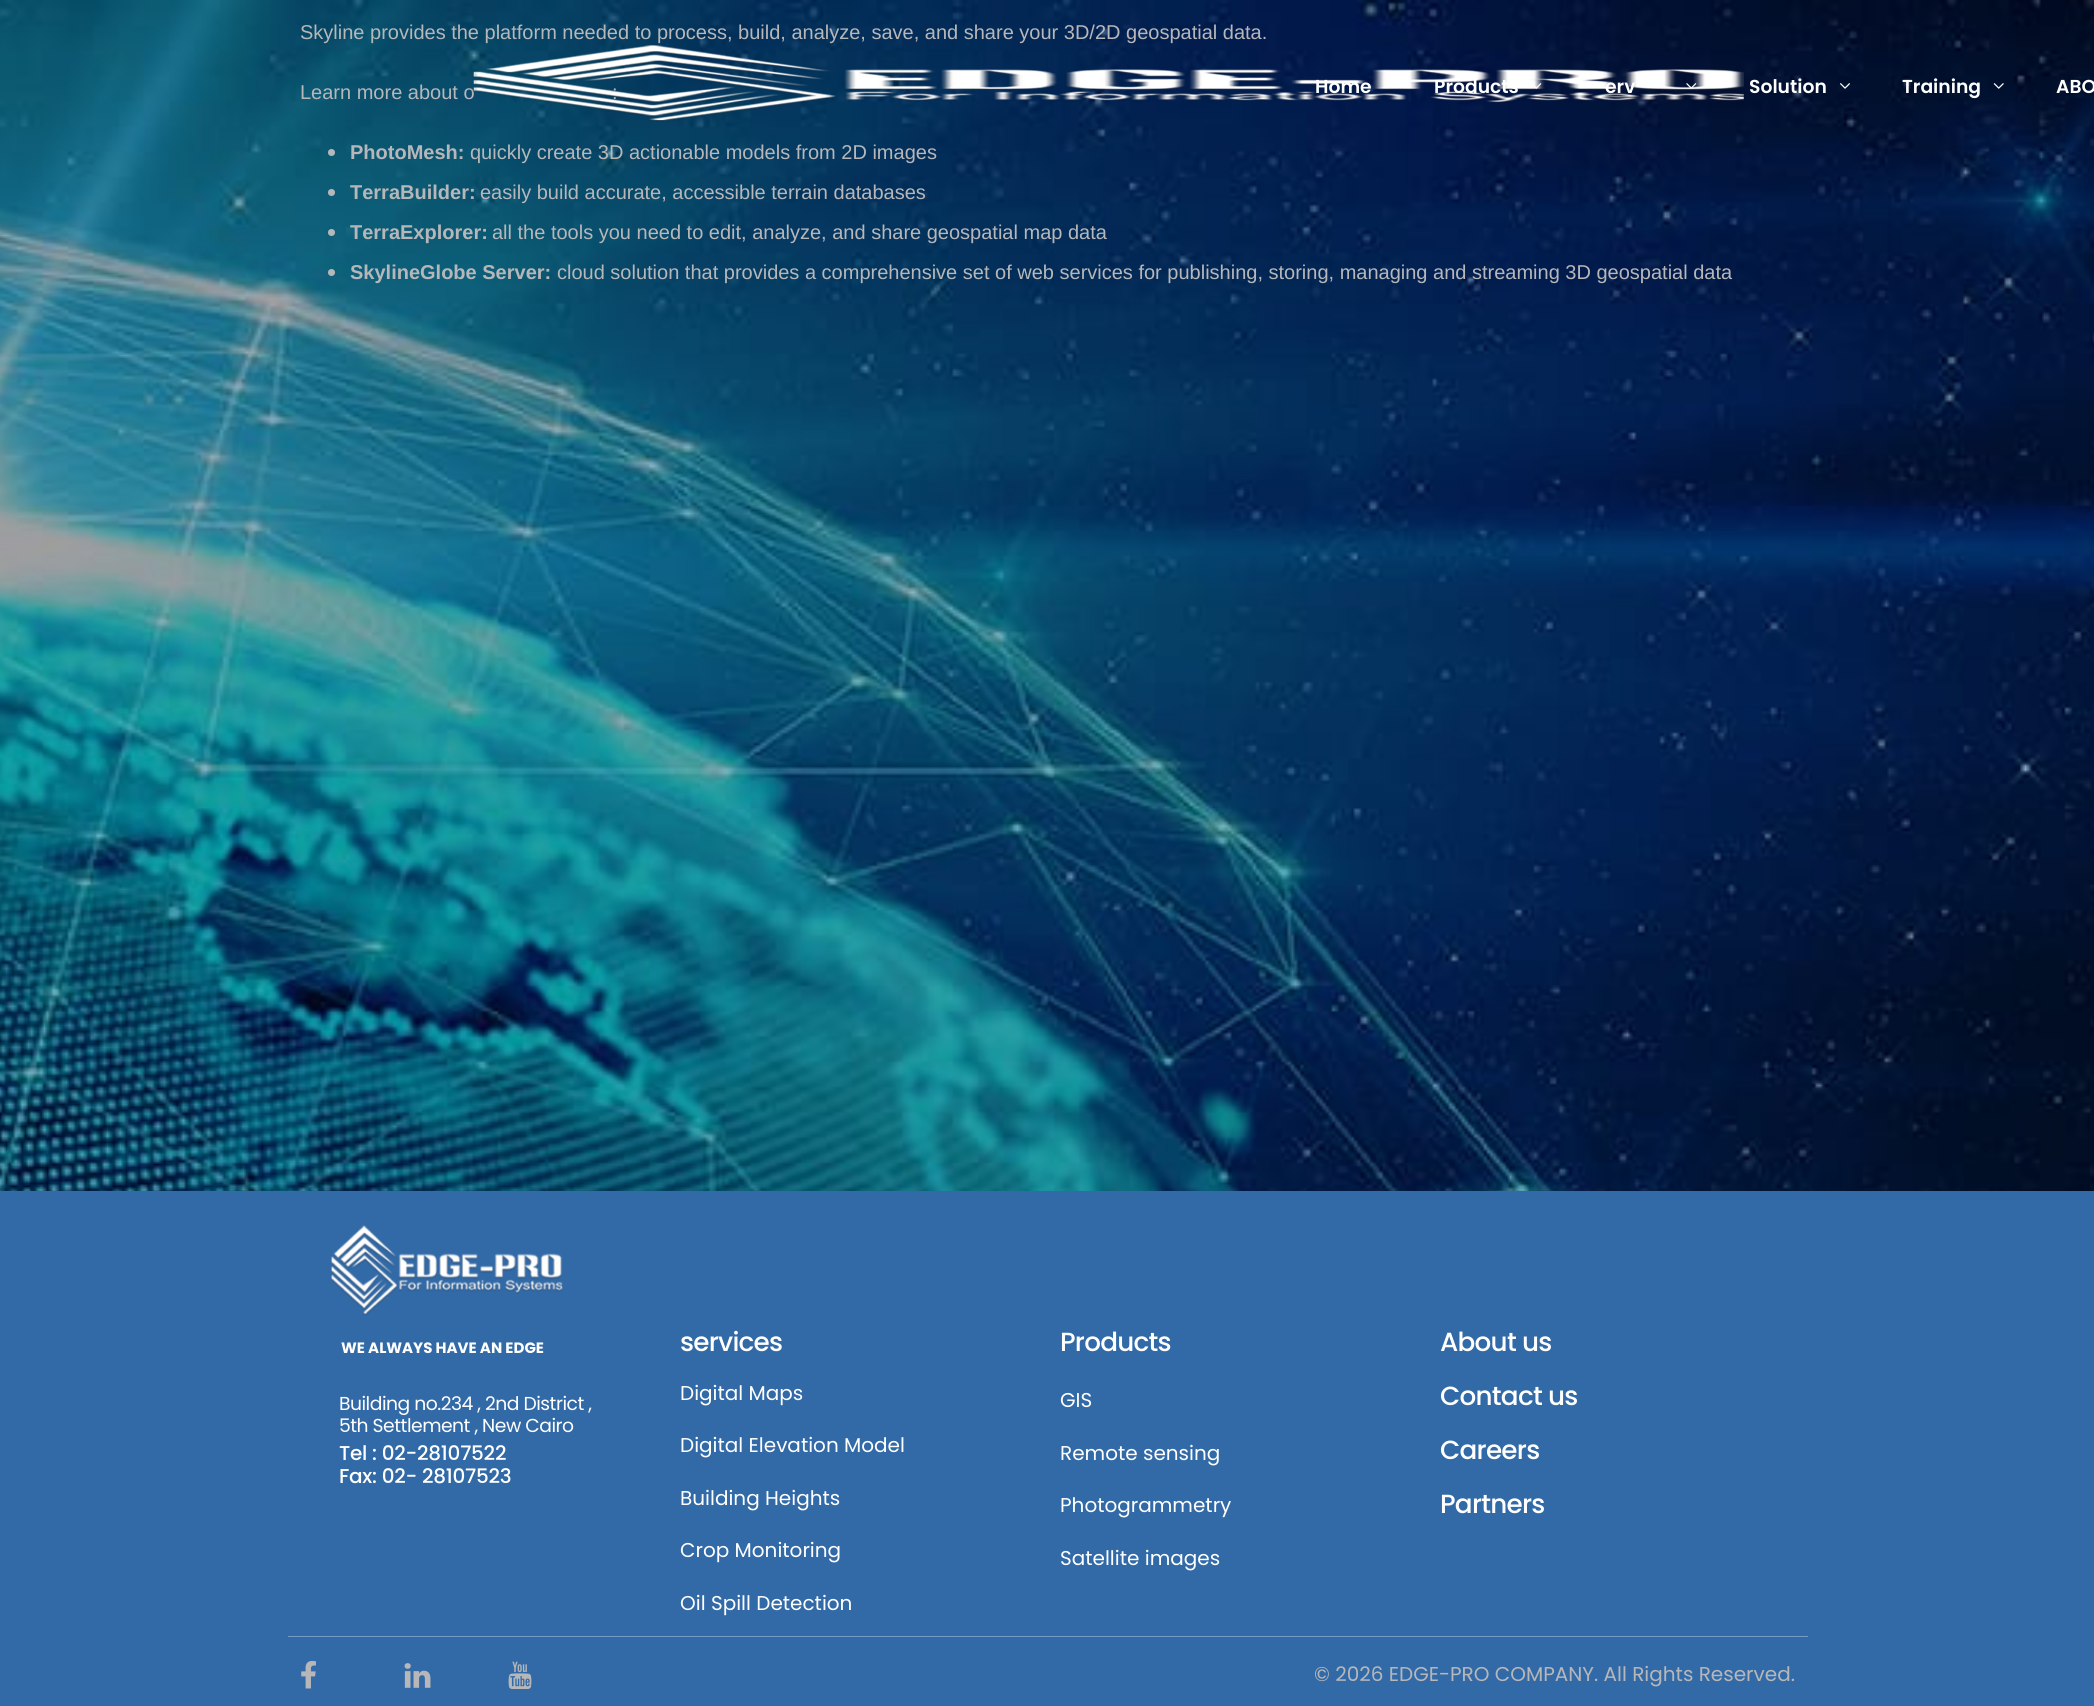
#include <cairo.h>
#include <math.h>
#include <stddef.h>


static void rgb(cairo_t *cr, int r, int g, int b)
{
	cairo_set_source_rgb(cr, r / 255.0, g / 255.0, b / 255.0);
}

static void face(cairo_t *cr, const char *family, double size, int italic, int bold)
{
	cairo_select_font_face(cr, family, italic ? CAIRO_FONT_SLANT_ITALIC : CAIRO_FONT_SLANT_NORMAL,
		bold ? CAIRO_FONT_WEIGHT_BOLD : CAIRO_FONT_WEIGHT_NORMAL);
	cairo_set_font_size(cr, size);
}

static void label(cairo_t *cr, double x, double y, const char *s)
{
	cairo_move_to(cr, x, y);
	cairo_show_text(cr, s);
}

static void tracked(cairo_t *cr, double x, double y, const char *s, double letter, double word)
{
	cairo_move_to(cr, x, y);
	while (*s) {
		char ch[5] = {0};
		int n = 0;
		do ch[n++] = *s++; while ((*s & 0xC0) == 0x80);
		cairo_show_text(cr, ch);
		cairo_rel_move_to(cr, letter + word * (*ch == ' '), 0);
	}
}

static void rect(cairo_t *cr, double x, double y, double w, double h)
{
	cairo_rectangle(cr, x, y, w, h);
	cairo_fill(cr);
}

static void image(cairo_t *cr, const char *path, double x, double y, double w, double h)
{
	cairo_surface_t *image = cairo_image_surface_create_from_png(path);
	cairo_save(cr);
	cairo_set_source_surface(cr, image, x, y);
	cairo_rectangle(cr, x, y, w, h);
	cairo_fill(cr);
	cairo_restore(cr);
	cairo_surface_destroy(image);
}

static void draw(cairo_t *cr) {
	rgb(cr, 255, 255, 255);
	cairo_paint(cr);
	image(cr, "image0.png", 0, 0, 2094, 1191);
	face(cr, "Liberation Sans", 20, 0, 0);
	rgb(cr, 183, 183, 185);
	label(cr, 300, 39, "Skyline provides the platform needed to process, build, analyze, save, and share your 3D/2D geospatial data.");
	label(cr, 300, 99, "Learn more about o");
	label(cr, 612, 99, ":");
	cairo_new_path(cr);
	cairo_arc(cr, 331.5, 152.5, 3.5, 0, 2 * M_PI);
	cairo_fill(cr);
	face(cr, "Liberation Sans", 20, 0, 1);
	label(cr, 350, 159, "PhotoMesh:");
	face(cr, "Liberation Sans", 20, 0, 0);
	label(cr, 470, 159, "quickly create 3D actionable models from 2D images");
	cairo_new_path(cr);
	cairo_arc(cr, 331.5, 192.5, 3.5, 0, 2 * M_PI);
	cairo_fill(cr);
	face(cr, "Liberation Sans", 20, 0, 1);
	label(cr, 350, 199, "TerraBuilder:");
	face(cr, "Liberation Sans", 20, 0, 0);
	label(cr, 480, 199, "easily build accurate, accessible terrain databases");
	cairo_new_path(cr);
	cairo_arc(cr, 331.5, 232.5, 3.5, 0, 2 * M_PI);
	cairo_fill(cr);
	face(cr, "Liberation Sans", 20, 0, 1);
	label(cr, 350, 239, "TerraExplorer:");
	face(cr, "Liberation Sans", 20, 0, 0);
	label(cr, 492, 239, "all the tools you need to edit, analyze, and share geospatial map data");
	cairo_new_path(cr);
	cairo_arc(cr, 331.5, 272.5, 3.5, 0, 2 * M_PI);
	cairo_fill(cr);
	face(cr, "Liberation Sans", 20, 0, 1);
	label(cr, 350, 279, "SkylineGlobe Server:");
	face(cr, "Liberation Sans", 20, 0, 0);
	label(cr, 557, 279, "cloud solution that provides a comprehensive set of web services for publishing, storing, managing and streaming 3D geospatial data");
	image(cr, "image1.png", 470, 45, 1274, 77);
	face(cr, "Poppins SemiBold", 18.75, 0, 0);
	rgb(cr, 255, 255, 255);
	label(cr, 1315, 93, "Home");
	label(cr, 1434, 93, "Products");
	image(cr, "image2.png", 1534, 83, 8, 6);
	label(cr, 1605, 93, "erv");
	image(cr, "image3.png", 1686, 83, 11, 6);
	label(cr, 1749, 93, "Solution");
	image(cr, "image4.png", 1840, 83, 10, 6);
	label(cr, 1902, 93, "Training");
	image(cr, "image5.png", 1993, 83, 11, 6);
	label(cr, 2056, 93, "ABO");
	rgb(cr, 50, 106, 167);
	rect(cr, 0, 1191, 2094, 515);
	rgb(cr, 118, 155, 196);
	rect(cr, 288, 1636, 1520, 1);
	image(cr, "image6.png", 331, 1225, 232, 91);
	face(cr, "Poppins", 15, 0, 1);
	rgb(cr, 255, 255, 255);
	label(cr, 341, 1353, "WE ALWAYS HAVE AN EDGE");
	face(cr, "Poppins", 18.75, 0, 0);
	tracked(cr, 339, 1410, "Building no.234 , 2nd District ,", -0.5, 0);
	tracked(cr, 339, 1432, "5th Settlement , New Cairo", -0.5, 0);
	face(cr, "Poppins Medium", 20, 0, 0);
	tracked(cr, 339, 1460, "Tel : 02-28107522", -0.25, 0);
	tracked(cr, 339, 1483, "Fax: 02- 28107523", -0.25, 0);
	face(cr, "Poppins Medium", 26.25, 0, 0);
	tracked(cr, 680, 1351, "services", -0.75, 0);
	face(cr, "Poppins", 20, 0, 0);
	label(cr, 680, 1400, "Digital Maps");
	label(cr, 680, 1452, "Digital Elevation Model");
	label(cr, 680, 1505, "Building Heights");
	label(cr, 680, 1557, "Crop Monitoring");
	label(cr, 680, 1610, "Oil Spill Detection");
	face(cr, "Poppins Medium", 26.25, 0, 0);
	tracked(cr, 1060, 1351, "Products", -0.75, 0);
	face(cr, "Poppins", 20, 0, 0);
	label(cr, 1060, 1407, "GIS");
	label(cr, 1060, 1460, "Remote sensing");
	label(cr, 1060, 1512, "Photogrammetry");
	label(cr, 1060, 1565, "Satellite images");
	face(cr, "Poppins Medium", 26.25, 0, 0);
	tracked(cr, 1440, 1351, "About us", -0.75, 0);
	tracked(cr, 1440, 1405, "Contact us", -0.75, 0);
	tracked(cr, 1440, 1459, "Careers", -0.75, 0);
	tracked(cr, 1440, 1513, "Partners", -0.75, 0);
	image(cr, "image7.png", 301, 1661, 15, 28);
	image(cr, "image8.png", 404, 1663, 27, 25);
	image(cr, "image9.png", 508, 1661, 24, 28);
	face(cr, "Poppins", 20, 0, 0);
	rgb(cr, 183, 183, 185);
	label(cr, 1314, 1681, "© 2026 EDGE-PRO COMPANY. All Rights Reserved.");
}

int main(void) {
	cairo_surface_t *surface = cairo_image_surface_create(CAIRO_FORMAT_RGB24, 2094, 1706);
	cairo_t *cr = cairo_create(surface);
	cairo_font_options_t *options = cairo_font_options_create();
	cairo_font_options_set_hint_metrics(options, CAIRO_HINT_METRICS_OFF);
	cairo_font_options_set_hint_style(options, CAIRO_HINT_STYLE_NONE);
	cairo_set_font_options(cr, options);
	cairo_set_miter_limit(cr, 4);
	draw(cr);
	cairo_surface_write_to_png(surface, "render.png");
	cairo_font_options_destroy(options);
	cairo_destroy(cr);
	cairo_surface_destroy(surface);
	return 0;
}
